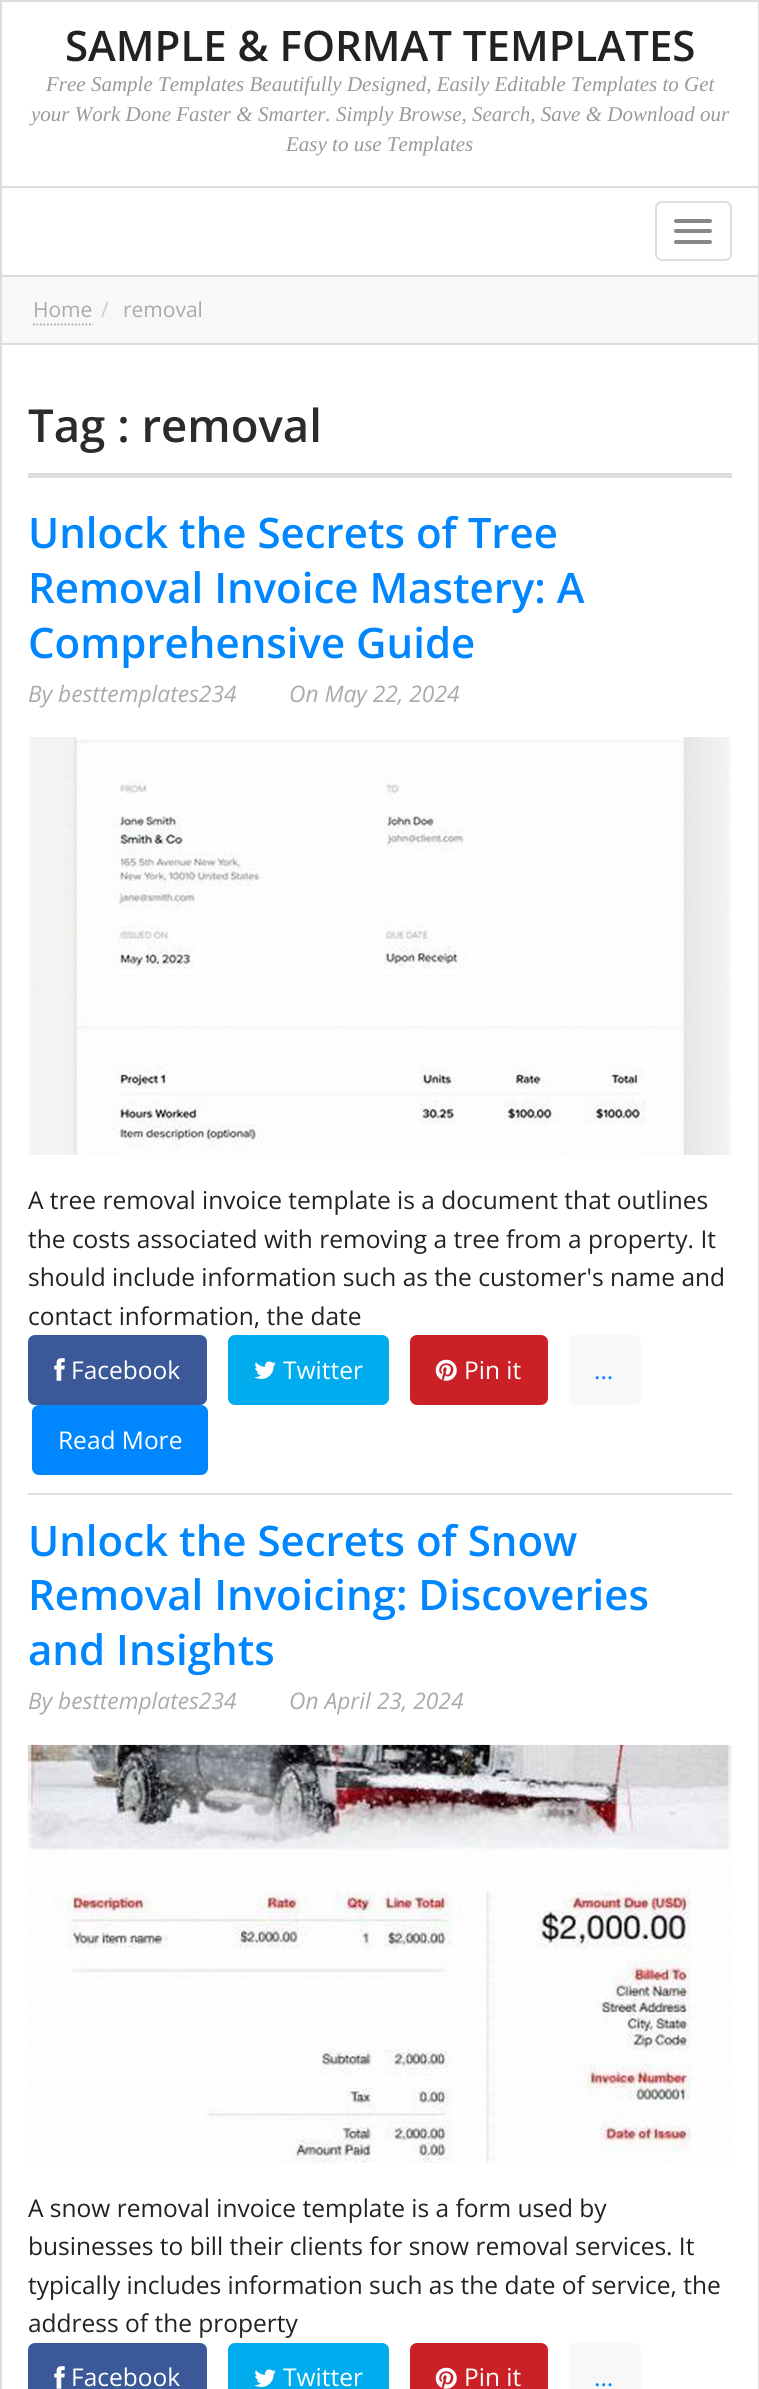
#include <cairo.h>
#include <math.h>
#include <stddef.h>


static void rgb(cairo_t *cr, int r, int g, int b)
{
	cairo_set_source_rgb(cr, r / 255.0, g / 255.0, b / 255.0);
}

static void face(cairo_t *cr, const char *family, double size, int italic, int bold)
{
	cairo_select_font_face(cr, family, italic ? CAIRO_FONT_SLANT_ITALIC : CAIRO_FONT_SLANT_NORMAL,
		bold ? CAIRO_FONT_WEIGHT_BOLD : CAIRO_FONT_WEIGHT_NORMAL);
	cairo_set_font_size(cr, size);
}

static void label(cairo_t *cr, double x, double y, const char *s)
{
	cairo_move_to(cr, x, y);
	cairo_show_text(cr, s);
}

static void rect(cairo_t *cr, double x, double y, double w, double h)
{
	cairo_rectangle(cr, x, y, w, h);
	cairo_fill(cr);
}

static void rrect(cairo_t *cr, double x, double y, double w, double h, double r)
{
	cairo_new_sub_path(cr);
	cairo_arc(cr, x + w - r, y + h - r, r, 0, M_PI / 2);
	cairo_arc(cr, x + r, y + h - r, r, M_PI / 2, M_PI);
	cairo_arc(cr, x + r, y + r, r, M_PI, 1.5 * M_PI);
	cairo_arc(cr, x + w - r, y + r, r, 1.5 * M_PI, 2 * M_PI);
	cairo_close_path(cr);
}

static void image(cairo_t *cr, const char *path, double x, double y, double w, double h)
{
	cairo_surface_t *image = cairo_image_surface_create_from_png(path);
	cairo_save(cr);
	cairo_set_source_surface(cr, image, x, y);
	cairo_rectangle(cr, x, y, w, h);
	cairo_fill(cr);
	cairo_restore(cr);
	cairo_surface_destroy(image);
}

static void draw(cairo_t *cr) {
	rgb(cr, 255, 255, 255);
	cairo_paint(cr);
	cairo_rectangle(cr, 1, 1, 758, 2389);
	rgb(cr, 221, 221, 221);
	cairo_stroke(cr);
	face(cr, "Open Sans SemiBold", 42, 0, 0);
	rgb(cr, 34, 34, 34);
	label(cr, 65, 61, "SAMPLE & FORMAT TEMPLATES");
	face(cr, "Liberation Serif", 21, 1, 0);
	rgb(cr, 153, 153, 153);
	label(cr, 46, 91, "Free Sample Templates Beautifully Designed, Easily Editable Templates to Get");
	label(cr, 31, 121, "your Work Done Faster & Smarter. Simply Browse, Search, Save & Download our");
	label(cr, 286, 151, "Easy to use Templates");
	rgb(cr, 221, 221, 221);
	rect(cr, 2, 186, 756, 2);
	rect(cr, 2, 275, 756, 2);
	rrect(cr, 656, 202, 75, 58, 6);
	cairo_stroke(cr);
	rgb(cr, 136, 136, 136);
	rrect(cr, 674, 219, 38, 4, 2);
	cairo_fill(cr);
	rrect(cr, 674, 229, 38, 4, 2);
	cairo_fill(cr);
	rrect(cr, 674, 240, 38, 4, 2);
	cairo_fill(cr);
	rgb(cr, 248, 248, 248);
	rect(cr, 2, 277, 756, 66);
	rgb(cr, 221, 221, 221);
	rect(cr, 2, 343, 756, 2);
	face(cr, "Open Sans", 21, 0, 0);
	rgb(cr, 170, 170, 170);
	label(cr, 33, 317, "Home");
	cairo_new_path(cr);
	cairo_move_to(cr, 33, 324.5);
	cairo_line_to(cr, 93, 324.5);
	cairo_set_line_width(cr, 1.8);
	cairo_set_dash(cr, (double[]){1.75, 1.75}, 2, 0);
	cairo_stroke(cr);
	rgb(cr, 204, 204, 204);
	label(cr, 101, 317, "/");
	rgb(cr, 170, 170, 170);
	label(cr, 123, 317, "removal");
	rgb(cr, 221, 221, 221);
	rect(cr, 28, 473, 704, 5);
	face(cr, "Open Sans SemiBold", 45.5, 0, 0);
	rgb(cr, 43, 43, 43);
	label(cr, 28, 442, "Tag : removal");
	rgb(cr, 221, 221, 221);
	rect(cr, 28, 1493, 704, 2);
	face(cr, "Open Sans SemiBold", 42, 0, 0);
	rgb(cr, 0, 135, 255);
	label(cr, 28, 548, "Unlock the Secrets of Tree");
	label(cr, 28, 603, "Removal Invoice Mastery: A");
	label(cr, 28, 658, "Comprehensive Guide");
	face(cr, "Open Sans", 22.75, 1, 0);
	rgb(cr, 170, 170, 170);
	label(cr, 28, 702, "By besttemplates234");
	label(cr, 289, 702, "On May 22, 2024");
	image(cr, "image0.png", 28, 737, 703, 418);
	face(cr, "Open Sans", 24.5, 0, 0);
	rgb(cr, 34, 34, 34);
	label(cr, 28, 1209, "A tree removal invoice template is a document that outlines");
	label(cr, 28, 1248, "the costs associated with removing a tree from a property. It");
	label(cr, 28, 1286, "should include information such as the customer's name and");
	label(cr, 28, 1325, "contact information, the date");
	rgb(cr, 59, 89, 152);
	rrect(cr, 28, 1335, 179, 70, 7);
	cairo_fill(cr);
	image(cr, "image1.png", 54, 1358, 11, 23);
	rgb(cr, 255, 255, 255);
	label(cr, 71, 1379, "Facebook");
	rgb(cr, 0, 172, 237);
	rrect(cr, 228, 1335, 161, 70, 7);
	cairo_fill(cr);
	image(cr, "image2.png", 254, 1361, 22, 18);
	rgb(cr, 255, 255, 255);
	label(cr, 283, 1379, "Twitter");
	rgb(cr, 203, 32, 38);
	rrect(cr, 410, 1335, 138, 70, 7);
	cairo_fill(cr);
	image(cr, "image3.png", 435, 1359, 22, 22);
	rgb(cr, 255, 255, 255);
	label(cr, 464, 1379, "Pin it");
	rgb(cr, 248, 248, 248);
	rrect(cr, 569, 1335, 72, 70, 7);
	cairo_fill(cr);
	rgb(cr, 0, 135, 255);
	label(cr, 594, 1379, "...");
	rrect(cr, 32, 1405, 176, 70, 7);
	cairo_fill(cr);
	rgb(cr, 255, 255, 255);
	label(cr, 58, 1449, "Read More");
	face(cr, "Open Sans SemiBold", 42, 0, 0);
	rgb(cr, 0, 135, 255);
	label(cr, 28, 1556, "Unlock the Secrets of Snow");
	label(cr, 28, 1610, "Removal Invoicing: Discoveries");
	label(cr, 28, 1665, "and Insights");
	face(cr, "Open Sans", 22.75, 1, 0);
	rgb(cr, 170, 170, 170);
	label(cr, 28, 1709, "By besttemplates234");
	label(cr, 289, 1709, "On April 23, 2024");
	image(cr, "image4.png", 28, 1744, 704, 419);
	face(cr, "Open Sans", 24.5, 0, 0);
	rgb(cr, 34, 34, 34);
	label(cr, 28, 2217, "A snow removal invoice template is a form used by");
	label(cr, 28, 2255, "businesses to bill their clients for snow removal services. It");
	label(cr, 28, 2294, "typically includes information such as the date of service, the");
	label(cr, 28, 2332, "address of the property");
	rgb(cr, 59, 89, 152);
	rrect(cr, 28, 2343, 179, 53, 7);
	cairo_fill(cr);
	image(cr, "image1.png", 54, 2366, 11, 23);
	rgb(cr, 255, 255, 255);
	label(cr, 71, 2386, "Facebook");
	rgb(cr, 0, 172, 237);
	rrect(cr, 228, 2343, 161, 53, 7);
	cairo_fill(cr);
	image(cr, "image2.png", 254, 2369, 22, 18);
	rgb(cr, 255, 255, 255);
	label(cr, 283, 2386, "Twitter");
	rgb(cr, 203, 32, 38);
	rrect(cr, 410, 2343, 138, 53, 7);
	cairo_fill(cr);
	image(cr, "image3.png", 435, 2367, 22, 22);
	rgb(cr, 255, 255, 255);
	label(cr, 464, 2386, "Pin it");
	rgb(cr, 248, 248, 248);
	rrect(cr, 569, 2343, 72, 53, 7);
	cairo_fill(cr);
	rgb(cr, 0, 135, 255);
	label(cr, 594, 2386, "...");
}

int main(void) {
	cairo_surface_t *surface = cairo_image_surface_create(CAIRO_FORMAT_RGB24, 759, 2389);
	cairo_t *cr = cairo_create(surface);
	cairo_font_options_t *options = cairo_font_options_create();
	cairo_font_options_set_hint_metrics(options, CAIRO_HINT_METRICS_OFF);
	cairo_font_options_set_hint_style(options, CAIRO_HINT_STYLE_NONE);
	cairo_set_font_options(cr, options);
	cairo_set_miter_limit(cr, 4);
	draw(cr);
	cairo_surface_write_to_png(surface, "render.png");
	cairo_font_options_destroy(options);
	cairo_destroy(cr);
	cairo_surface_destroy(surface);
	return 0;
}
